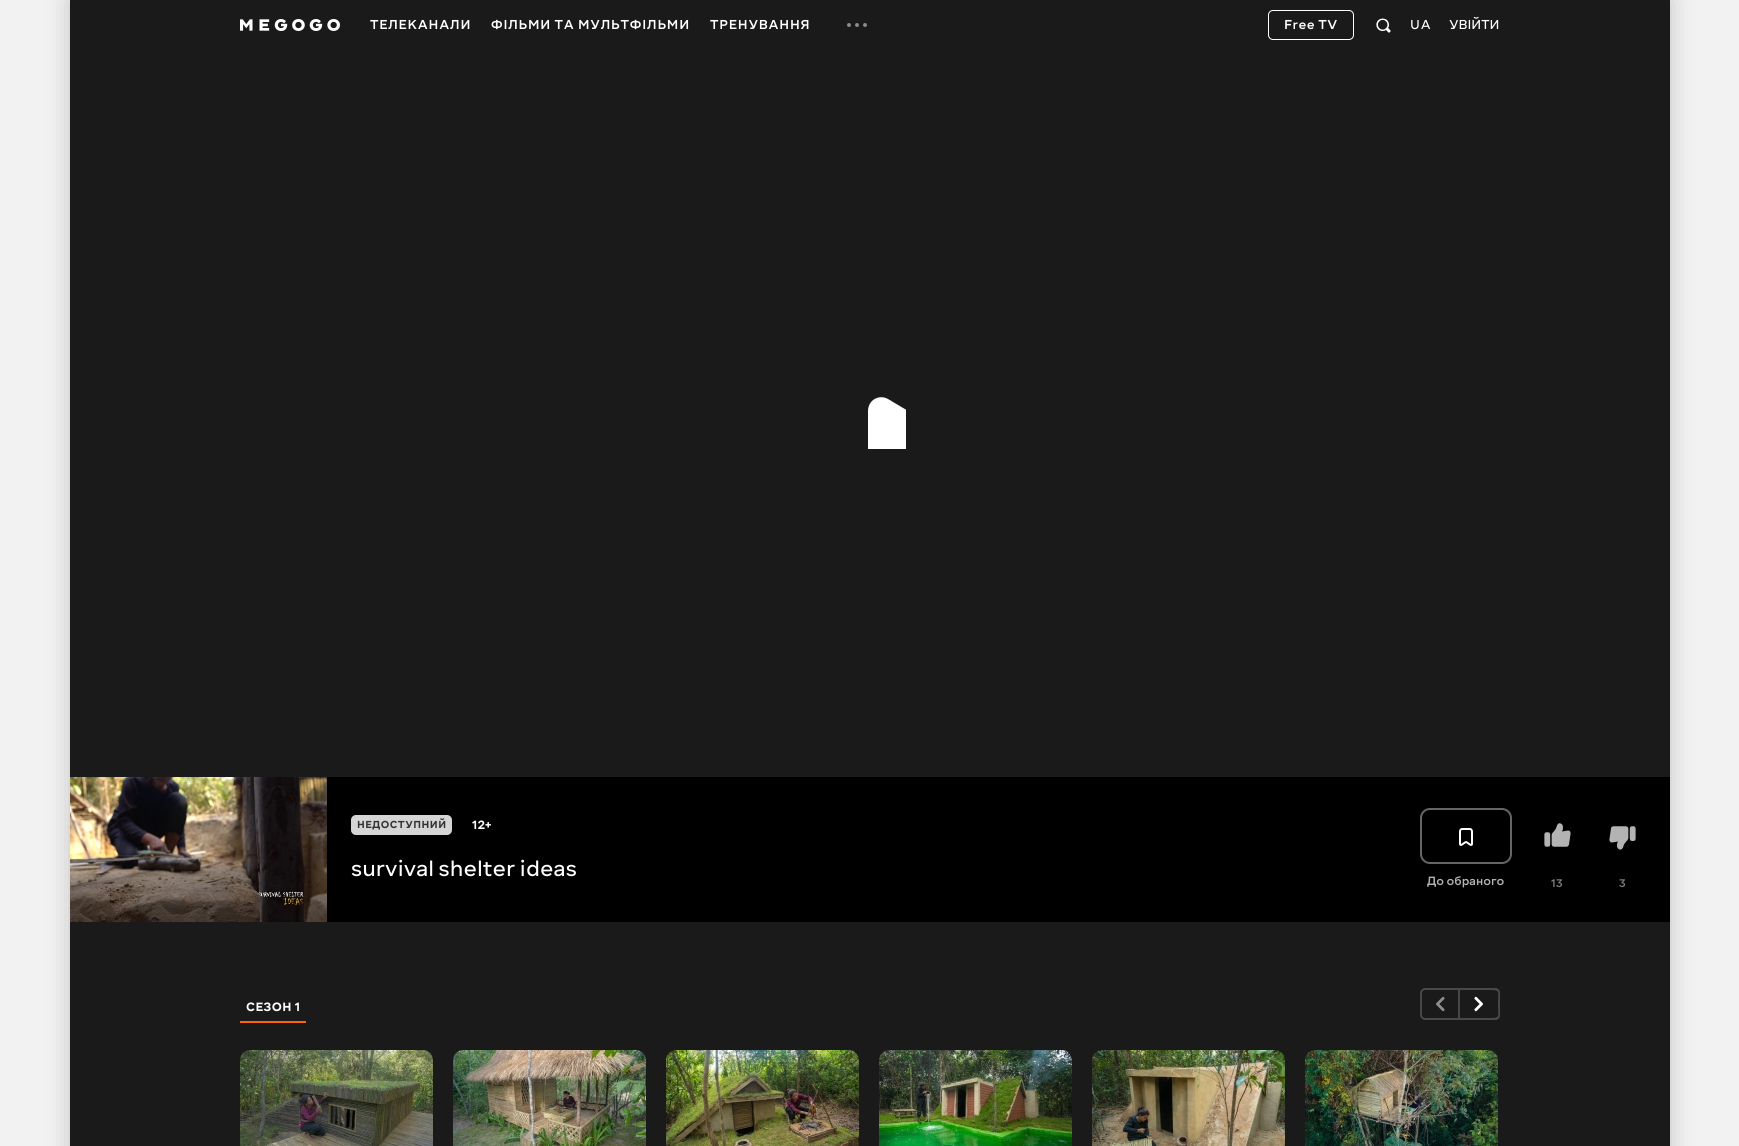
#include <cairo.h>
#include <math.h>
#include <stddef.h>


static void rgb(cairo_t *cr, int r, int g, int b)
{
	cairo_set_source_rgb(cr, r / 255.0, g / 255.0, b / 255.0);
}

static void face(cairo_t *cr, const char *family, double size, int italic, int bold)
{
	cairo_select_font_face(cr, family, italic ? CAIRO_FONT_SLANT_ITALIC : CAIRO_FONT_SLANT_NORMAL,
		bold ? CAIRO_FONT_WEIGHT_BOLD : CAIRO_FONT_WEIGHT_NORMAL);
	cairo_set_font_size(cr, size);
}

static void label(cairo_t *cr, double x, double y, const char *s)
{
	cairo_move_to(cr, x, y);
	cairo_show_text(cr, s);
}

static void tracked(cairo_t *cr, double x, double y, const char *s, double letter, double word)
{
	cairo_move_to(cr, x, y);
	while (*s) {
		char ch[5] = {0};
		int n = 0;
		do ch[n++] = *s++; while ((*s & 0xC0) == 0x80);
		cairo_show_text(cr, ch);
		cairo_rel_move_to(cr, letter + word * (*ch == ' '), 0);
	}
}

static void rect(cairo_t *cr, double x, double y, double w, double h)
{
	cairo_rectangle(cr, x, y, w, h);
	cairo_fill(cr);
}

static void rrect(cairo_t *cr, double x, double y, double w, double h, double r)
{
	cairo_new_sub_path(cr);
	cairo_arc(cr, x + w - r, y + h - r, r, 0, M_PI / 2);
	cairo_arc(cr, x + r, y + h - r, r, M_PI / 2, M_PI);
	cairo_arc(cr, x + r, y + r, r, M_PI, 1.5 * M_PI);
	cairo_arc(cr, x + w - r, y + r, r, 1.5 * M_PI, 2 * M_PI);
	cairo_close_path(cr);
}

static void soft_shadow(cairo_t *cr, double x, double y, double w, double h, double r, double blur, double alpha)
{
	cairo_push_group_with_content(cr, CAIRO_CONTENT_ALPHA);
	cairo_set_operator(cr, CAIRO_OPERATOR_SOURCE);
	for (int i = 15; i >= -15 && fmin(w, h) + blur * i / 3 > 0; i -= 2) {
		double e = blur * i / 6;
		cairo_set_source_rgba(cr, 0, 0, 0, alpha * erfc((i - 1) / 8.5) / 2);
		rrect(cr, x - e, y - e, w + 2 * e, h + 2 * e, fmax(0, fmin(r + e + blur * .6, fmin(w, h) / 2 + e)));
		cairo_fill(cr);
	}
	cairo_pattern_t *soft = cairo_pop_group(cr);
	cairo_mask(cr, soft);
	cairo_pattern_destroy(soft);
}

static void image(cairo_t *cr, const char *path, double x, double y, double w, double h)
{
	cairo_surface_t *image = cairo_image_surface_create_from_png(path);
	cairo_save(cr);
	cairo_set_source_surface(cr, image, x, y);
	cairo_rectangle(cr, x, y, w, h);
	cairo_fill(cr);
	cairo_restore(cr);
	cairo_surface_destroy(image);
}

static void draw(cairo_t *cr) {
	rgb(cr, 242, 242, 242);
	cairo_paint(cr);
	rgb(cr, 0, 0, 0);
	soft_shadow(cr, 70, 0, 1600, 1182, 0, 12, 0.2);
	rgb(cr, 26, 26, 26);
	rect(cr, 70, 0, 1600, 777);
	image(cr, "image0.png", 240, 19, 100, 12);
	face(cr, "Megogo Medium", 14, 0, 0);
	rgb(cr, 255, 255, 255);
	tracked(cr, 370, 29, "ТЕЛЕКАНАЛИ", 0.8, 0);
	tracked(cr, 491, 29, "ФІЛЬМИ ТА МУЛЬТФІЛЬМИ", 0.8, 0);
	tracked(cr, 710, 29, "ТРЕНУВАННЯ", 0.8, 0);
	image(cr, "image1.png", 847, 23, 20, 4);
	rrect(cr, 1268.5, 10.5, 85, 29, 4.5);
	cairo_set_line_width(cr, 1);
	cairo_stroke(cr);
	tracked(cr, 1284, 29, "Free TV", 0.5, 0);
	image(cr, "image2.png", 1376, 18, 15, 15);
	face(cr, "Megogo", 14, 0, 0);
	tracked(cr, 1410, 29, "UA", 0.8, 0);
	label(cr, 1449, 29, "УВІЙТИ");
	rgb(cr, 0, 0, 0);
	rect(cr, 327, 777, 1343, 145);
	cairo_save(cr);
	cairo_rectangle(cr, 834, 377, 72, 72);
	cairo_clip(cr);
	rgb(cr, 255, 255, 255);
	cairo_new_path(cr);
	cairo_move_to(cr, 888, 399);
	cairo_curve_to(cr, 879, 394, 868, 400, 868, 411);
	cairo_line_to(cr, 868, 505);
	cairo_curve_to(cr, 868, 516, 879, 522, 888, 517);
	cairo_line_to(cr, 967, 470);
	cairo_curve_to(cr, 976, 464, 976, 452, 967, 446);
	cairo_close_path(cr);
	cairo_fill(cr);
	cairo_restore(cr);
	image(cr, "image3.png", 70, 777, 257, 145);
	rgb(cr, 213, 213, 213);
	rrect(cr, 351, 815, 101, 20, 5);
	cairo_fill(cr);
	face(cr, "Megogo SemiBold", 11, 0, 0);
	rgb(cr, 51, 51, 51);
	tracked(cr, 357, 828, "НЕДОСТУПНИЙ", 0.5, 0);
	face(cr, "Megogo SemiBold", 13, 0, 0);
	rgb(cr, 255, 255, 255);
	label(cr, 472, 829, "12+");
	face(cr, "Megogo", 24, 0, 0);
	label(cr, 351, 876, "survival shelter ideas");
	rrect(cr, 1421, 809, 90, 54, 9);
	rgb(cr, 102, 102, 102);
	cairo_set_line_width(cr, 2);
	cairo_stroke(cr);
	image(cr, "image4.png", 1459, 828, 14, 18);
	face(cr, "Megogo Medium", 13, 0, 0);
	rgb(cr, 179, 179, 179);
	label(cr, 1427, 885, "До обраного");
	image(cr, "image5.png", 1544, 823, 27, 24);
	face(cr, "Megogo Medium", 12, 0, 0);
	rgb(cr, 128, 128, 128);
	label(cr, 1551, 887, "13");
	image(cr, "image6.png", 1609, 826, 27, 24);
	label(cr, 1619, 887, "3");
	rgb(cr, 26, 26, 26);
	rect(cr, 70, 922, 1600, 224);
	cairo_new_path(cr);
	cairo_move_to(cr, 1425, 989);
	cairo_line_to(cr, 1459, 989);
	cairo_line_to(cr, 1459, 1019);
	cairo_line_to(cr, 1425, 1019);
	cairo_curve_to(cr, 1423, 1019, 1421, 1017, 1421, 1015);
	cairo_line_to(cr, 1421, 993);
	cairo_curve_to(cr, 1421, 991, 1423, 989, 1425, 989);
	cairo_close_path(cr);
	rgb(cr, 72, 72, 72);
	cairo_stroke(cr);
	image(cr, "image7.png", 1436, 996, 9, 16);
	cairo_set_fill_rule(cr, CAIRO_FILL_RULE_EVEN_ODD);
	cairo_new_path(cr);
	cairo_move_to(cr, 1460, 988);
	cairo_line_to(cr, 1495, 988);
	cairo_curve_to(cr, 1498, 988, 1500, 990, 1500, 993);
	cairo_line_to(cr, 1500, 1015);
	cairo_curve_to(cr, 1500, 1018, 1498, 1020, 1495, 1020);
	cairo_line_to(cr, 1460, 1020);
	cairo_close_path(cr);
	cairo_move_to(cr, 1460, 990);
	cairo_line_to(cr, 1489, 990);
	cairo_curve_to(cr, 1501, 990, 1498, 991, 1498, 1004);
	cairo_curve_to(cr, 1498, 1017, 1501, 1018, 1489, 1018);
	cairo_line_to(cr, 1460, 1018);
	cairo_close_path(cr);
	cairo_fill(cr);
	image(cr, "image8.png", 1474, 996, 9, 16);
	image(cr, "image9.png", 240, 1050, 193, 96);
	image(cr, "image10.png", 453, 1050, 193, 96);
	image(cr, "image11.png", 666, 1050, 193, 96);
	image(cr, "image12.png", 879, 1050, 193, 96);
	image(cr, "image13.png", 1092, 1050, 193, 96);
	image(cr, "image14.png", 1305, 1050, 193, 96);
	face(cr, "Megogo SemiBold", 13, 0, 0);
	rgb(cr, 255, 255, 255);
	tracked(cr, 246, 1011, "СЕЗОН 1", 0.5, 0);
	rgb(cr, 255, 102, 0);
	rect(cr, 240, 1021, 66, 2);
}

int main(void) {
	cairo_surface_t *surface = cairo_image_surface_create(CAIRO_FORMAT_RGB24, 1739, 1146);
	cairo_t *cr = cairo_create(surface);
	cairo_font_options_t *options = cairo_font_options_create();
	cairo_font_options_set_hint_metrics(options, CAIRO_HINT_METRICS_OFF);
	cairo_font_options_set_hint_style(options, CAIRO_HINT_STYLE_NONE);
	cairo_set_font_options(cr, options);
	cairo_set_miter_limit(cr, 4);
	draw(cr);
	cairo_surface_write_to_png(surface, "render.png");
	cairo_font_options_destroy(options);
	cairo_destroy(cr);
	cairo_surface_destroy(surface);
	return 0;
}
